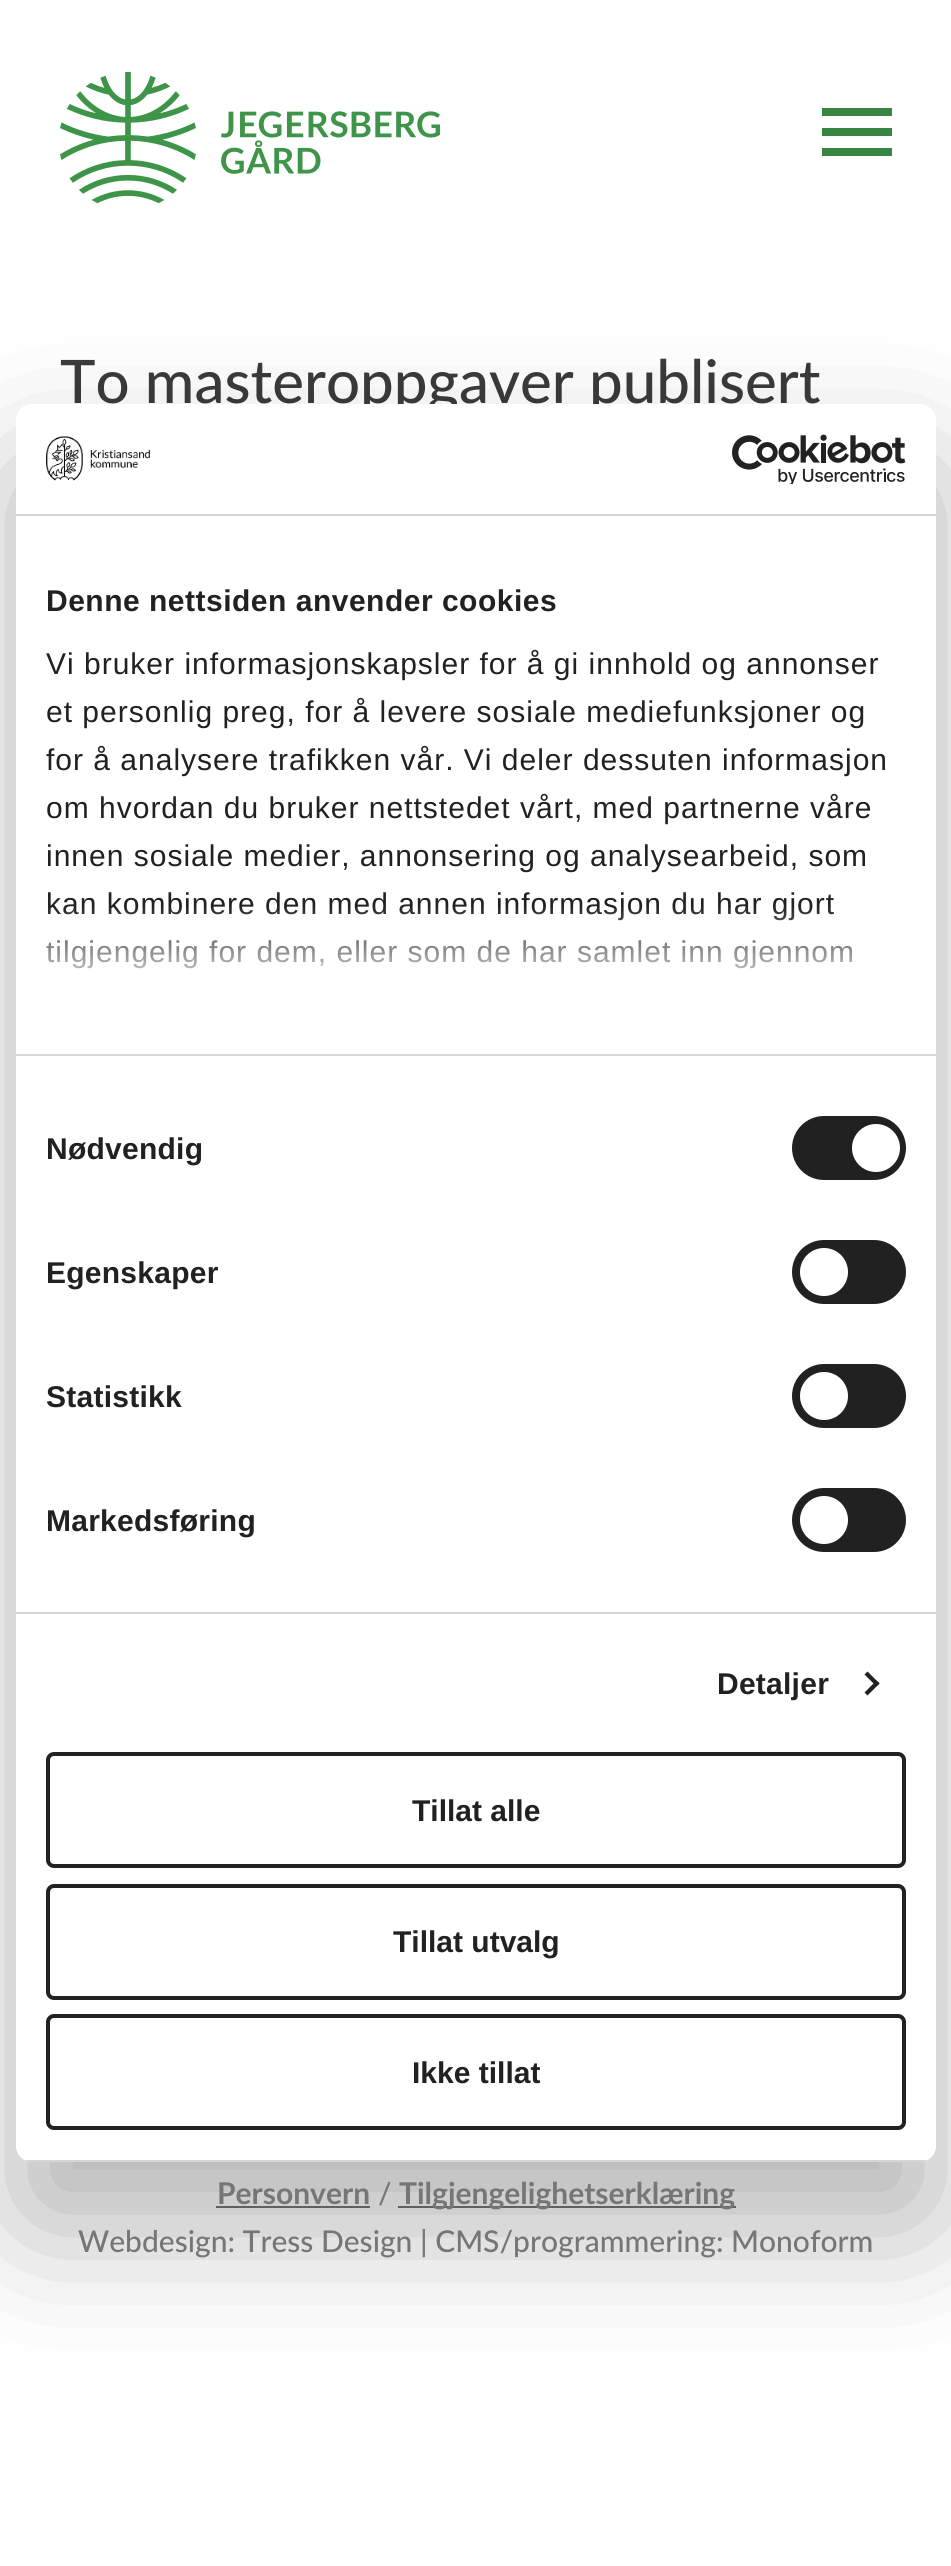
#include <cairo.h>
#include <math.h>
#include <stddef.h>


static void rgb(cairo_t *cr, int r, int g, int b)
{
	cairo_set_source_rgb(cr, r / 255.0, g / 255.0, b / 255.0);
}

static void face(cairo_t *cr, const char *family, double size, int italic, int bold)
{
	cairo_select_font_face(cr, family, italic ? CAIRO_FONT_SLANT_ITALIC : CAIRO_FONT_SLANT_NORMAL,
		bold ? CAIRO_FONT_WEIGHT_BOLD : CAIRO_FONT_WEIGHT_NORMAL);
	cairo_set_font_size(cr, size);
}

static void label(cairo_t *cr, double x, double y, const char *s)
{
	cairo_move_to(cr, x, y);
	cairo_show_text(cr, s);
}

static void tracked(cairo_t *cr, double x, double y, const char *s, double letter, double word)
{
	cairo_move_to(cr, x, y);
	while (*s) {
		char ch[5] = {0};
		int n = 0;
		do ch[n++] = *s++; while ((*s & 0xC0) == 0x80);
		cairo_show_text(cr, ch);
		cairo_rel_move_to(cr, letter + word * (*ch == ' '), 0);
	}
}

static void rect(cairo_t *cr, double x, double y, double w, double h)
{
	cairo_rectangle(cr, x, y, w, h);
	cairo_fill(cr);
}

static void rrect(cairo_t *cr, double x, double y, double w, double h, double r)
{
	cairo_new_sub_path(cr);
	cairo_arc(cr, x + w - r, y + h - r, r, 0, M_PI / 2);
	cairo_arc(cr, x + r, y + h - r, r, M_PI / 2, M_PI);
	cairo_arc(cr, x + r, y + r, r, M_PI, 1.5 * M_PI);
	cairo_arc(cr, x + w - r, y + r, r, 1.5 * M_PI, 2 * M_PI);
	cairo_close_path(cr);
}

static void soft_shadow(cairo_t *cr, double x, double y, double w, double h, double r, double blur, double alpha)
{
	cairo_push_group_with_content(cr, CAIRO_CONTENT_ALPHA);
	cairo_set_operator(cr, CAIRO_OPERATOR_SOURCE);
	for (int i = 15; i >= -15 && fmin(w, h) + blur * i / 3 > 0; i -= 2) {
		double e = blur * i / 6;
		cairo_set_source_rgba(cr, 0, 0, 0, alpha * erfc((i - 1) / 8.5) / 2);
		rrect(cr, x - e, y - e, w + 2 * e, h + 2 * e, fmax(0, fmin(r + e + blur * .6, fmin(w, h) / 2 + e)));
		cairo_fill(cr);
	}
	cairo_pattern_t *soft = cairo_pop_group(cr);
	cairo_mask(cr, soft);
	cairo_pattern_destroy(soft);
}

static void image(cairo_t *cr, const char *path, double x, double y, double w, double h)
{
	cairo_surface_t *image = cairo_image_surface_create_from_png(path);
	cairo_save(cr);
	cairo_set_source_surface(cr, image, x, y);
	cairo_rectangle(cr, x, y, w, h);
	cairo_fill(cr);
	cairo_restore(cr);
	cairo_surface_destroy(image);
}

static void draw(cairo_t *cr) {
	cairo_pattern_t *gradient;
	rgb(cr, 255, 255, 255);
	cairo_paint(cr);
	image(cr, "image0.png", 60, 72, 380, 132);
	rgb(cr, 55, 133, 64);
	rect(cr, 822, 108, 70, 8);
	rect(cr, 822, 128, 70, 8);
	rect(cr, 822, 148, 70, 8);
	face(cr, "Lato Medium", 60, 0, 0);
	rgb(cr, 59, 59, 59);
	label(cr, 60, 403, "To masteroppgaver publisert");
	rgb(cr, 118, 118, 118);
	rect(cr, 216, 2206, 154, 2);
	rect(cr, 398, 2206, 338, 2);
	rgb(cr, 0, 0, 0);
	soft_shadow(cr, 16, 468, 920, 1758, 16, 68, 0.3);
	rgb(cr, 255, 255, 255);
	rrect(cr, 16, 404, 920, 1758, 16);
	cairo_fill(cr);
	rgb(cr, 214, 214, 214);
	rect(cr, 16, 514, 920, 2);
	image(cr, "image1.png", 46, 436, 104, 45);
	image(cr, "image2.png", 732, 434, 174, 50);
	rect(cr, 16, 1054, 920, 2);
	face(cr, "Liberation Sans", 30, 0, 1);
	rgb(cr, 33, 33, 33);
	tracked(cr, 46, 611, "Denne nettsiden anvender cookies", 0.5, 0);
	face(cr, "Liberation Sans", 30, 0, 0);
	tracked(cr, 46, 674, "Vi bruker informasjonskapsler for å gi innhold og annonser", 1, 0);
	tracked(cr, 46, 722, "et personlig preg, for å levere sosiale mediefunksjoner og", 1, 0);
	tracked(cr, 46, 770, "for å analysere trafikken vår. Vi deler dessuten informasjon", 1, 0);
	tracked(cr, 46, 818, "om hvordan du bruker nettstedet vårt, med partnerne våre", 1, 0);
	tracked(cr, 46, 866, "innen sosiale medier, annonsering og analysearbeid, som", 1, 0);
	tracked(cr, 46, 914, "kan kombinere den med annen informasjon du har gjort", 1, 0);
	tracked(cr, 46, 962, "tilgjengelig for dem, eller som de har samlet inn gjennom", 1, 0);
	gradient = cairo_pattern_create_linear(463, 1055, 463, 905);
	cairo_pattern_add_color_stop_rgba(gradient, 0, 1, 1, 1, 1);
	cairo_pattern_add_color_stop_rgba(gradient, 0.5, 1, 1, 1, 0.8);
	cairo_pattern_add_color_stop_rgba(gradient, 1, 1, 1, 1, 0);
	cairo_set_source(cr, gradient);
	cairo_pattern_destroy(gradient);
	rect(cr, 46, 907, 807, 62);
	rgb(cr, 214, 214, 214);
	rect(cr, 16, 1612, 920, 2);
	face(cr, "Liberation Sans", 30, 0, 1);
	rgb(cr, 33, 33, 33);
	tracked(cr, 46, 1159, "Nødvendig", 0.25, 0);
	rrect(cr, 792, 1116, 114, 64, 32);
	cairo_fill(cr);
	rgb(cr, 255, 255, 255);
	cairo_arc(cr, 876, 1148, 24, 0, 2 * M_PI);
	cairo_fill(cr);
	rgb(cr, 33, 33, 33);
	tracked(cr, 46, 1283, "Egenskaper", 0.25, 0);
	rrect(cr, 792, 1240, 114, 64, 32);
	cairo_fill(cr);
	rgb(cr, 255, 255, 255);
	cairo_arc(cr, 824, 1272, 24, 0, 2 * M_PI);
	cairo_fill(cr);
	rgb(cr, 33, 33, 33);
	tracked(cr, 46, 1407, "Statistikk", 0.25, 0);
	rrect(cr, 792, 1364, 114, 64, 32);
	cairo_fill(cr);
	rgb(cr, 255, 255, 255);
	cairo_arc(cr, 824, 1396, 24, 0, 2 * M_PI);
	cairo_fill(cr);
	rgb(cr, 33, 33, 33);
	tracked(cr, 46, 1531, "Markedsføring", 0.25, 0);
	rrect(cr, 792, 1488, 114, 64, 32);
	cairo_fill(cr);
	rgb(cr, 255, 255, 255);
	cairo_arc(cr, 824, 1520, 24, 0, 2 * M_PI);
	cairo_fill(cr);
	rgb(cr, 33, 33, 33);
	tracked(cr, 717, 1694, "Detaljer", 0.25, 0);
	cairo_new_path(cr);
	cairo_move_to(cr, 867.5, 1671.5);
	cairo_line_to(cr, 879.5, 1683.5);
	cairo_line_to(cr, 876.5, 1686.5);
	cairo_line_to(cr, 864.5, 1674.5);
	cairo_close_path(cr);
	cairo_fill(cr);
	cairo_new_path(cr);
	cairo_move_to(cr, 876.5, 1680.5);
	cairo_line_to(cr, 879.5, 1683.5);
	cairo_line_to(cr, 867.5, 1695.5);
	cairo_line_to(cr, 864.5, 1692.5);
	cairo_close_path(cr);
	cairo_fill(cr);
	cairo_save(cr);
	rrect(cr, 16, 404, 920, 1758, 16);
	cairo_clip(cr);
	rgb(cr, 214, 214, 214);
	rect(cr, 16, 2160, 920, 2);
	cairo_restore(cr);
	rrect(cr, 48, 1754, 856, 112, 6);
	cairo_set_line_width(cr, 4);
	cairo_stroke(cr);
	label(cr, 412, 1821, "Tillat alle");
	rrect(cr, 48, 1886, 856, 112, 6);
	cairo_stroke(cr);
	label(cr, 393, 1952, "Tillat utvalg");
	rrect(cr, 48, 2016, 856, 112, 6);
	cairo_stroke(cr);
	label(cr, 412, 2083, "Ikke tillat");
	face(cr, "Lato", 30, 0, 1);
	rgb(cr, 118, 118, 118);
	label(cr, 217, 2204, "Personvern");
	face(cr, "Lato Medium", 30, 0, 0);
	label(cr, 378, 2204, "/");
	face(cr, "Lato", 30, 0, 1);
	label(cr, 399, 2204, "Tilgjengelighetserklæring");
	face(cr, "Lato Medium", 30, 0, 0);
	label(cr, 78, 2252, "Webdesign: Tress Design | CMS/programmering: Monoform");
}

int main(void) {
	cairo_surface_t *surface = cairo_image_surface_create(CAIRO_FORMAT_RGB24, 951, 2566);
	cairo_t *cr = cairo_create(surface);
	cairo_font_options_t *options = cairo_font_options_create();
	cairo_font_options_set_hint_metrics(options, CAIRO_HINT_METRICS_OFF);
	cairo_font_options_set_hint_style(options, CAIRO_HINT_STYLE_NONE);
	cairo_set_font_options(cr, options);
	cairo_set_miter_limit(cr, 4);
	draw(cr);
	cairo_surface_write_to_png(surface, "render.png");
	cairo_font_options_destroy(options);
	cairo_destroy(cr);
	cairo_surface_destroy(surface);
	return 0;
}
